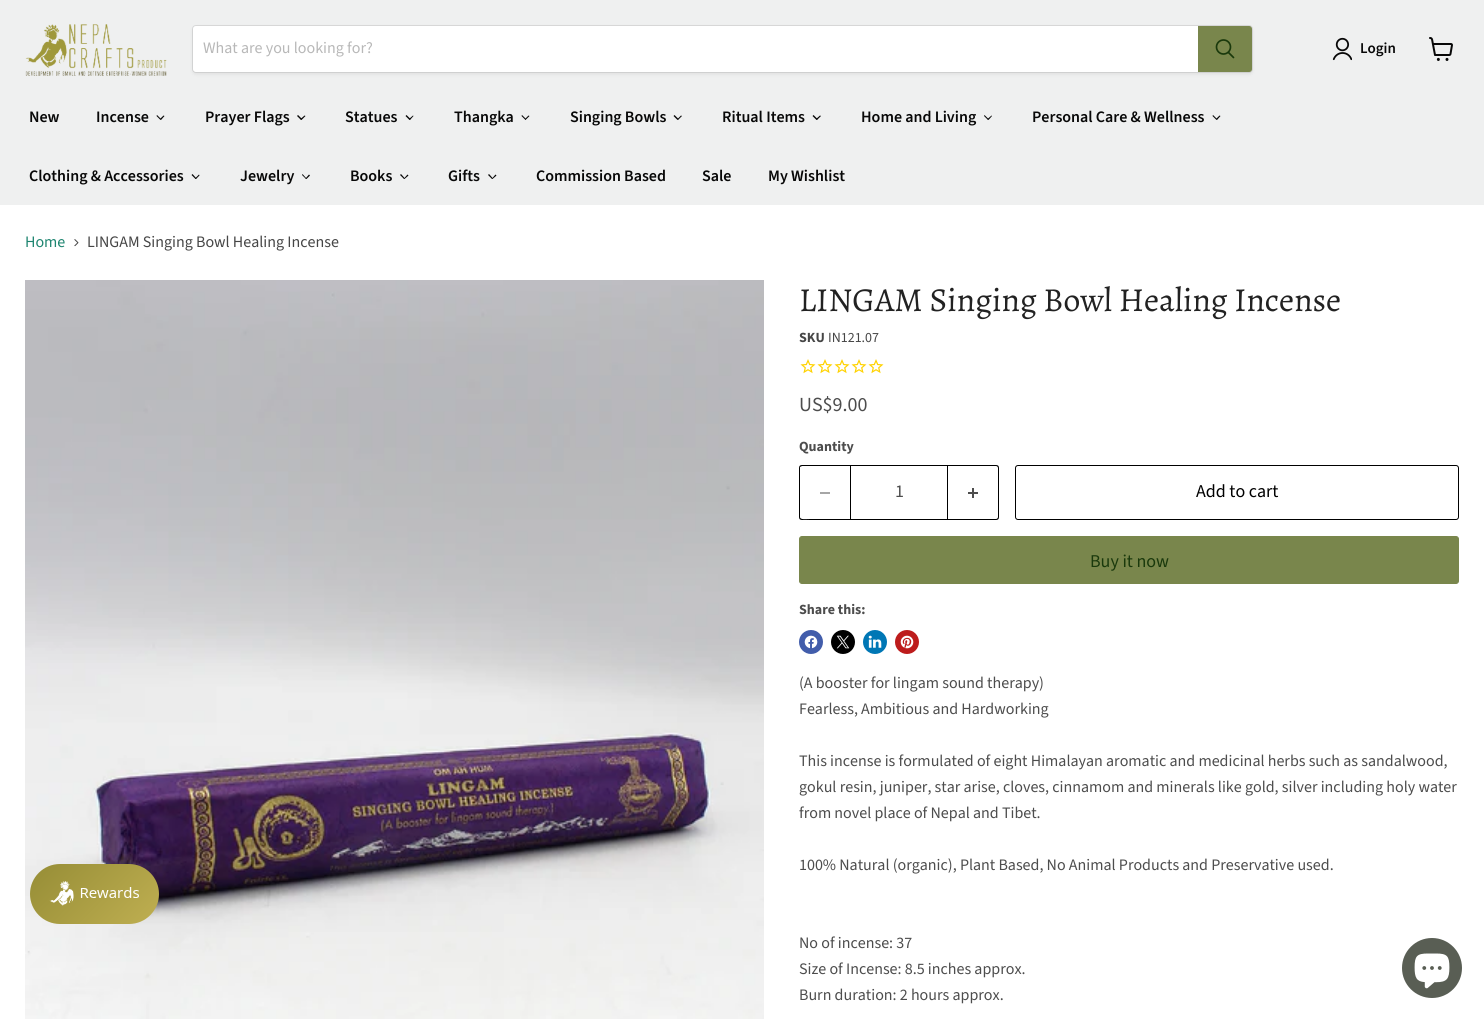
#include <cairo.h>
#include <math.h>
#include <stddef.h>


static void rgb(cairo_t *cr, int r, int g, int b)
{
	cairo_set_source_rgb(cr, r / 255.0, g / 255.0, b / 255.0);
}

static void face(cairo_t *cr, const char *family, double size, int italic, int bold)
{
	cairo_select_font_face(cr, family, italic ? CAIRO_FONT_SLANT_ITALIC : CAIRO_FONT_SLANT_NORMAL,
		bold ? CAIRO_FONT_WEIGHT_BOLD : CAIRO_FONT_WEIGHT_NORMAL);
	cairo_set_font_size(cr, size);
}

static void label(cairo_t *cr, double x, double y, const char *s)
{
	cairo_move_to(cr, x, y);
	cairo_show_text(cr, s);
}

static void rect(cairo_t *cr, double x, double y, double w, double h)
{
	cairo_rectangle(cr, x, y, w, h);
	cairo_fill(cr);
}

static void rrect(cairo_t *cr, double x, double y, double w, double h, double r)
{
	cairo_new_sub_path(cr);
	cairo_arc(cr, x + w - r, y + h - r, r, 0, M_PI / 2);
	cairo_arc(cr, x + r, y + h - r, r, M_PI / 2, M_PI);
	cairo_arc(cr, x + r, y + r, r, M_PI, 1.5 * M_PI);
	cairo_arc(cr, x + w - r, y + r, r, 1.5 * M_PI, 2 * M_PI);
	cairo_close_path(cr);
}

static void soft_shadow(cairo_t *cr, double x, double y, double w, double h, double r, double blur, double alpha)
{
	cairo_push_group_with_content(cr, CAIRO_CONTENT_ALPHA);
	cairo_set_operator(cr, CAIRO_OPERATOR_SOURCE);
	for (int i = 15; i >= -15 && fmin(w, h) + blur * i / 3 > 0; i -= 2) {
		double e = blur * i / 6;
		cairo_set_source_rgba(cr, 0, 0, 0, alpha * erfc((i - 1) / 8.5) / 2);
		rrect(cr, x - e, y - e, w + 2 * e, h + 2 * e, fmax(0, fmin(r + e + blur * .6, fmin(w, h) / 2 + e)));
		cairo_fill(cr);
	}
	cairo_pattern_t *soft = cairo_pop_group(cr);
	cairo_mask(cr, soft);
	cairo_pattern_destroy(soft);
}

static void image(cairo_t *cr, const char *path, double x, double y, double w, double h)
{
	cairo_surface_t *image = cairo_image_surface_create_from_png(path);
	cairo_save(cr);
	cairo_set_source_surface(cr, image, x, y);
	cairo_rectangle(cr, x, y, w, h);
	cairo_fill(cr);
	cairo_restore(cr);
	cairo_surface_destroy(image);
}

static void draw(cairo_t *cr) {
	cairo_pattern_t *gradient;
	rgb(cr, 255, 255, 255);
	cairo_paint(cr);
	rgb(cr, 239, 240, 240);
	rect(cr, 0, 0, 1484, 205);
	image(cr, "image0.png", 25, 24, 142, 52);
	rgb(cr, 128, 128, 128);
	soft_shadow(cr, 192, 27, 1061, 48, 4, 1.5, 0.11);
	rrect(cr, 192.5, 25.5, 1060, 47, 3.5);
	cairo_set_source_rgba(cr, 0.502, 0.502, 0.502, 0.2);
	cairo_set_line_width(cr, 1);
	cairo_stroke(cr);
	rgb(cr, 255, 255, 255);
	cairo_new_path(cr);
	cairo_move_to(cr, 196, 26);
	cairo_line_to(cr, 1198, 26);
	cairo_line_to(cr, 1198, 72);
	cairo_line_to(cr, 196, 72);
	cairo_curve_to(cr, 194.5, 72, 193, 70.5, 193, 69);
	cairo_line_to(cr, 193, 29);
	cairo_curve_to(cr, 193, 27.5, 194.5, 26, 196, 26);
	cairo_close_path(cr);
	cairo_fill(cr);
	face(cr, "Source Sans Pro", 16, 0, 0);
	rgb(cr, 184, 184, 184);
	label(cr, 203, 53, "What are you looking for?");
	rgb(cr, 121, 134, 76);
	cairo_new_path(cr);
	cairo_move_to(cr, 1198.5, 26.5);
	cairo_line_to(cr, 1249, 26.5);
	cairo_curve_to(cr, 1250.5, 26.5, 1251.5, 27.5, 1251.5, 29);
	cairo_line_to(cr, 1251.5, 69);
	cairo_curve_to(cr, 1251.5, 70.5, 1250.5, 71.5, 1249, 71.5);
	cairo_line_to(cr, 1198.5, 71.5);
	cairo_close_path(cr);
	cairo_fill_preserve(cr);
	cairo_stroke(cr);
	cairo_new_path(cr);
	cairo_move_to(cr, 1233.5, 57.5);
	cairo_line_to(cr, 1228.5, 52.5);
	rgb(cr, 26, 57, 12);
	cairo_set_line_width(cr, 1.7);
	cairo_set_line_cap(cr, CAIRO_LINE_CAP_ROUND);
	cairo_stroke(cr);
	cairo_arc(cr, 1223.5, 47, 7, 0, 2 * M_PI);
	cairo_set_line_cap(cr, CAIRO_LINE_CAP_BUTT);
	cairo_stroke(cr);
	image(cr, "image1.png", 1332, 37, 20, 24);
	face(cr, "Source Sans Pro SemiBold", 15, 0, 0);
	rgb(cr, 8, 8, 8);
	label(cr, 1360, 53, "Login");
	image(cr, "image2.png", 1429, 37, 24, 24);
	face(cr, "Source Sans Pro SemiBold", 16, 0, 0);
	label(cr, 29, 122, "New");
	label(cr, 96, 122, "Incense");
	cairo_new_path(cr);
	cairo_move_to(cr, 163.5, 115.5);
	cairo_line_to(cr, 164.5, 116);
	cairo_line_to(cr, 161, 120);
	cairo_line_to(cr, 160, 119);
	cairo_close_path(cr);
	cairo_fill(cr);
	cairo_new_path(cr);
	cairo_move_to(cr, 157, 115);
	cairo_line_to(cr, 161, 119);
	cairo_line_to(cr, 160.5, 120);
	cairo_line_to(cr, 156.5, 116);
	cairo_close_path(cr);
	cairo_fill(cr);
	label(cr, 205, 122, "Prayer Flags");
	cairo_new_path(cr);
	cairo_move_to(cr, 304.5, 115.5);
	cairo_line_to(cr, 305.5, 116);
	cairo_line_to(cr, 301.5, 120);
	cairo_line_to(cr, 300.5, 119);
	cairo_close_path(cr);
	cairo_fill(cr);
	cairo_new_path(cr);
	cairo_move_to(cr, 298, 115);
	cairo_line_to(cr, 302, 119);
	cairo_line_to(cr, 301, 120);
	cairo_line_to(cr, 297, 116);
	cairo_close_path(cr);
	cairo_fill(cr);
	label(cr, 345, 122, "Statues");
	cairo_new_path(cr);
	cairo_move_to(cr, 413, 115.5);
	cairo_line_to(cr, 413.5, 116);
	cairo_line_to(cr, 410, 120);
	cairo_line_to(cr, 409, 119);
	cairo_close_path(cr);
	cairo_fill(cr);
	cairo_new_path(cr);
	cairo_move_to(cr, 406.5, 115);
	cairo_line_to(cr, 410.5, 119);
	cairo_line_to(cr, 409.5, 120);
	cairo_line_to(cr, 405.5, 116);
	cairo_close_path(cr);
	cairo_fill(cr);
	label(cr, 454, 122, "Thangka");
	cairo_new_path(cr);
	cairo_move_to(cr, 528.5, 115.5);
	cairo_line_to(cr, 529.5, 116);
	cairo_line_to(cr, 525.5, 120);
	cairo_line_to(cr, 525, 119);
	cairo_close_path(cr);
	cairo_fill(cr);
	cairo_new_path(cr);
	cairo_move_to(cr, 522, 115);
	cairo_line_to(cr, 526, 119);
	cairo_line_to(cr, 525.5, 120);
	cairo_line_to(cr, 521.5, 116);
	cairo_close_path(cr);
	cairo_fill(cr);
	label(cr, 570, 122, "Singing Bowls");
	cairo_new_path(cr);
	cairo_move_to(cr, 681, 115.5);
	cairo_line_to(cr, 682, 116);
	cairo_line_to(cr, 678, 120);
	cairo_line_to(cr, 677.5, 119);
	cairo_close_path(cr);
	cairo_fill(cr);
	cairo_new_path(cr);
	cairo_move_to(cr, 674.5, 115);
	cairo_line_to(cr, 678.5, 119);
	cairo_line_to(cr, 677.5, 120);
	cairo_line_to(cr, 673.5, 116);
	cairo_close_path(cr);
	cairo_fill(cr);
	label(cr, 722, 122, "Ritual Items");
	cairo_new_path(cr);
	cairo_move_to(cr, 820, 115.5);
	cairo_line_to(cr, 821, 116);
	cairo_line_to(cr, 817, 120);
	cairo_line_to(cr, 816, 119);
	cairo_close_path(cr);
	cairo_fill(cr);
	cairo_new_path(cr);
	cairo_move_to(cr, 813.5, 115);
	cairo_line_to(cr, 817.5, 119);
	cairo_line_to(cr, 816.5, 120);
	cairo_line_to(cr, 812.5, 116);
	cairo_close_path(cr);
	cairo_fill(cr);
	label(cr, 861, 122, "Home and Living");
	cairo_new_path(cr);
	cairo_move_to(cr, 991.5, 115.5);
	cairo_line_to(cr, 992, 116);
	cairo_line_to(cr, 988.5, 120);
	cairo_line_to(cr, 987.5, 119);
	cairo_close_path(cr);
	cairo_fill(cr);
	cairo_new_path(cr);
	cairo_move_to(cr, 984.5, 115);
	cairo_line_to(cr, 988.5, 119);
	cairo_line_to(cr, 988, 120);
	cairo_line_to(cr, 984, 116);
	cairo_close_path(cr);
	cairo_fill(cr);
	label(cr, 1032, 122, "Personal Care & Wellness");
	cairo_new_path(cr);
	cairo_move_to(cr, 1219.5, 115.5);
	cairo_line_to(cr, 1220.5, 116);
	cairo_line_to(cr, 1217, 120);
	cairo_line_to(cr, 1216, 119);
	cairo_close_path(cr);
	cairo_fill(cr);
	cairo_new_path(cr);
	cairo_move_to(cr, 1213, 115);
	cairo_line_to(cr, 1217, 119);
	cairo_line_to(cr, 1216.5, 120);
	cairo_line_to(cr, 1212.5, 116);
	cairo_close_path(cr);
	cairo_fill(cr);
	label(cr, 29, 181, "Clothing & Accessories");
	cairo_new_path(cr);
	cairo_move_to(cr, 199, 174.5);
	cairo_line_to(cr, 199.5, 175.5);
	cairo_line_to(cr, 196, 179);
	cairo_line_to(cr, 195, 178.5);
	cairo_close_path(cr);
	cairo_fill(cr);
	cairo_new_path(cr);
	cairo_move_to(cr, 192.5, 174);
	cairo_line_to(cr, 196.5, 178.5);
	cairo_line_to(cr, 195.5, 179);
	cairo_line_to(cr, 191.5, 175);
	cairo_close_path(cr);
	cairo_fill(cr);
	label(cr, 240, 181, "Jewelry");
	cairo_new_path(cr);
	cairo_move_to(cr, 309, 174.5);
	cairo_line_to(cr, 310, 175.5);
	cairo_line_to(cr, 306.5, 179);
	cairo_line_to(cr, 305.5, 178.5);
	cairo_close_path(cr);
	cairo_fill(cr);
	cairo_new_path(cr);
	cairo_move_to(cr, 302.5, 174);
	cairo_line_to(cr, 306.5, 178.5);
	cairo_line_to(cr, 306, 179);
	cairo_line_to(cr, 302, 175);
	cairo_close_path(cr);
	cairo_fill(cr);
	label(cr, 350, 181, "Books");
	cairo_new_path(cr);
	cairo_move_to(cr, 407.5, 174.5);
	cairo_line_to(cr, 408.5, 175.5);
	cairo_line_to(cr, 404.5, 179);
	cairo_line_to(cr, 404, 178.5);
	cairo_close_path(cr);
	cairo_fill(cr);
	cairo_new_path(cr);
	cairo_move_to(cr, 401, 174);
	cairo_line_to(cr, 405, 178.5);
	cairo_line_to(cr, 404, 179);
	cairo_line_to(cr, 400, 175);
	cairo_close_path(cr);
	cairo_fill(cr);
	label(cr, 448, 181, "Gifts");
	cairo_new_path(cr);
	cairo_move_to(cr, 495.5, 174.5);
	cairo_line_to(cr, 496.5, 175.5);
	cairo_line_to(cr, 492.5, 179);
	cairo_line_to(cr, 492, 178.5);
	cairo_close_path(cr);
	cairo_fill(cr);
	cairo_new_path(cr);
	cairo_move_to(cr, 489, 174);
	cairo_line_to(cr, 493, 178.5);
	cairo_line_to(cr, 492, 179);
	cairo_line_to(cr, 488, 175);
	cairo_close_path(cr);
	cairo_fill(cr);
	label(cr, 536, 181, "Commission Based");
	label(cr, 702, 181, "Sale");
	label(cr, 768, 181, "My Wishlist");
	face(cr, "Source Sans Pro", 16, 0, 0);
	rgb(cr, 30, 133, 112);
	label(cr, 25, 247, "Home");
	image(cr, "image3.png", 74, 239, 5, 8);
	rgb(cr, 70, 70, 70);
	label(cr, 87, 247, "LINGAM Singing Bowl Healing Incense");
	image(cr, "image4.png", 25, 280, 739, 739);
	face(cr, "Alegreya", 33.6, 0, 0);
	rgb(cr, 34, 34, 34);
	label(cr, 799, 311, "LINGAM Singing Bowl Healing Incense");
	face(cr, "Source Sans Pro", 14, 0, 1);
	rgb(cr, 70, 70, 70);
	label(cr, 799, 342, "SKU");
	face(cr, "Source Sans Pro", 14, 0, 0);
	label(cr, 828, 342, "IN121.07");
	image(cr, "image5.png", 800, 359, 16, 15);
	image(cr, "image5.png", 817, 359, 16, 15);
	image(cr, "image5.png", 834, 359, 16, 15);
	image(cr, "image5.png", 851, 359, 16, 15);
	image(cr, "image5.png", 868, 359, 16, 15);
	face(cr, "Source Sans Pro", 20, 0, 0);
	rgb(cr, 77, 77, 77);
	label(cr, 799, 411, "US$9.00");
	face(cr, "Source Sans Pro", 14, 0, 1);
	label(cr, 799, 451, "Quantity");
	rgb(cr, 0, 0, 0);
	cairo_set_fill_rule(cr, CAIRO_FILL_RULE_EVEN_ODD);
	cairo_new_path(cr);
	cairo_move_to(cr, 802, 465);
	cairo_line_to(cr, 850, 465);
	cairo_line_to(cr, 850, 520);
	cairo_line_to(cr, 802, 520);
	cairo_curve_to(cr, 800, 520, 799, 519, 799, 517);
	cairo_line_to(cr, 799, 468);
	cairo_curve_to(cr, 799, 466, 800, 465, 802, 465);
	cairo_close_path(cr);
	cairo_move_to(cr, 802, 466);
	cairo_line_to(cr, 850, 466);
	cairo_line_to(cr, 850, 519);
	cairo_line_to(cr, 810, 519);
	cairo_curve_to(cr, 806, 519, 800, 520, 800, 517);
	cairo_line_to(cr, 800, 467);
	cairo_close_path(cr);
	cairo_fill(cr);
	rgb(cr, 166, 166, 166);
	rect(cr, 820, 492, 10, 2);
	cairo_rectangle(cr, 850.5, 465.5, 97, 54);
	rgb(cr, 0, 0, 0);
	cairo_set_line_width(cr, 1);
	cairo_stroke(cr);
	face(cr, "Source Sans Pro", 18, 0, 0);
	rgb(cr, 77, 77, 77);
	label(cr, 895, 497, "1");
	rgb(cr, 0, 0, 0);
	cairo_new_path(cr);
	cairo_move_to(cr, 948, 465);
	cairo_line_to(cr, 996, 465);
	cairo_curve_to(cr, 998, 465, 999, 466, 999, 468);
	cairo_line_to(cr, 999, 517);
	cairo_curve_to(cr, 999, 519, 998, 520, 996, 520);
	cairo_line_to(cr, 948, 520);
	cairo_close_path(cr);
	cairo_move_to(cr, 948, 466);
	cairo_line_to(cr, 996, 466);
	cairo_curve_to(cr, 997, 466, 998, 467, 998, 468);
	cairo_line_to(cr, 998, 517);
	cairo_curve_to(cr, 998, 518, 997, 519, 996, 519);
	cairo_line_to(cr, 948, 519);
	cairo_close_path(cr);
	cairo_fill(cr);
	image(cr, "image6.png", 968, 488, 10, 10);
	rrect(cr, 1015.5, 465.5, 443, 54, 2.5);
	cairo_stroke(cr);
	label(cr, 1196, 497, "Add to cart");
	rgb(cr, 121, 134, 76);
	rrect(cr, 799.5, 536.5, 659, 47, 2.5);
	cairo_fill_preserve(cr);
	cairo_stroke(cr);
	rgb(cr, 26, 57, 12);
	label(cr, 1090, 567, "Buy it now");
	face(cr, "Source Sans Pro", 14, 0, 1);
	rgb(cr, 77, 77, 77);
	label(cr, 799, 614, "Share this:");
	rgb(cr, 66, 93, 171);
	cairo_new_path(cr);
	cairo_arc(cr, 811, 642, 12, 0, 2 * M_PI);
	cairo_fill(cr);
	image(cr, "image7.png", 804, 635, 14, 14);
	rgb(cr, 0, 0, 0);
	cairo_arc(cr, 843, 642, 12, 0, 2 * M_PI);
	cairo_fill(cr);
	image(cr, "image8.png", 836, 635, 14, 14);
	rgb(cr, 0, 119, 181);
	cairo_arc(cr, 875, 642, 12, 0, 2 * M_PI);
	cairo_fill(cr);
	image(cr, "image9.png", 868, 635, 14, 13);
	rgb(cr, 189, 28, 28);
	cairo_arc(cr, 907, 642, 12, 0, 2 * M_PI);
	cairo_fill(cr);
	image(cr, "image10.png", 900, 635, 14, 14);
	face(cr, "Source Sans Pro", 16, 0, 0);
	rgb(cr, 77, 77, 77);
	label(cr, 799, 688, "(A booster for lingam sound therapy)");
	label(cr, 799, 714, "Fearless, Ambitious and Hardworking");
	label(cr, 799, 766, "This incense is formulated of eight Himalayan aromatic and medicinal herbs such as sandalwood,");
	label(cr, 799, 792, "gokul resin, juniper, star arise, cloves, cinnamom and minerals like gold, silver including holy water");
	label(cr, 799, 818, "from novel place of Nepal and Tibet.");
	label(cr, 799, 870, "100% Natural (organic), Plant Based, No Animal Products and Preservative used.");
	label(cr, 799, 948, "No of incense: 37");
	label(cr, 799, 974, "Size of Incense: 8.5 inches approx.");
	label(cr, 799, 1000, "Burn duration: 2 hours approx.");
	gradient = cairo_pattern_create_linear(47, 847, 142, 941);
	cairo_pattern_add_color_stop_rgba(gradient, 0, 0.588, 0.553, 0.212, 1);
	cairo_pattern_add_color_stop_rgba(gradient, 1, 0.749, 0.686, 0.318, 1);
	cairo_set_source(cr, gradient);
	cairo_pattern_destroy(gradient);
	rrect(cr, 30, 864, 129, 60, 30);
	cairo_fill(cr);
	image(cr, "image11.png", 49, 881, 90, 25);
	rgb(cr, 89, 94, 84);
	cairo_arc(cr, 1432, 968, 30, 0, 2 * M_PI);
	cairo_fill(cr);
	image(cr, "image12.png", 1414, 953, 36, 36);
}

int main(void) {
	cairo_surface_t *surface = cairo_image_surface_create(CAIRO_FORMAT_RGB24, 1484, 1019);
	cairo_t *cr = cairo_create(surface);
	cairo_font_options_t *options = cairo_font_options_create();
	cairo_font_options_set_hint_metrics(options, CAIRO_HINT_METRICS_OFF);
	cairo_font_options_set_hint_style(options, CAIRO_HINT_STYLE_NONE);
	cairo_set_font_options(cr, options);
	cairo_set_miter_limit(cr, 4);
	draw(cr);
	cairo_surface_write_to_png(surface, "render.png");
	cairo_font_options_destroy(options);
	cairo_destroy(cr);
	cairo_surface_destroy(surface);
	return 0;
}
